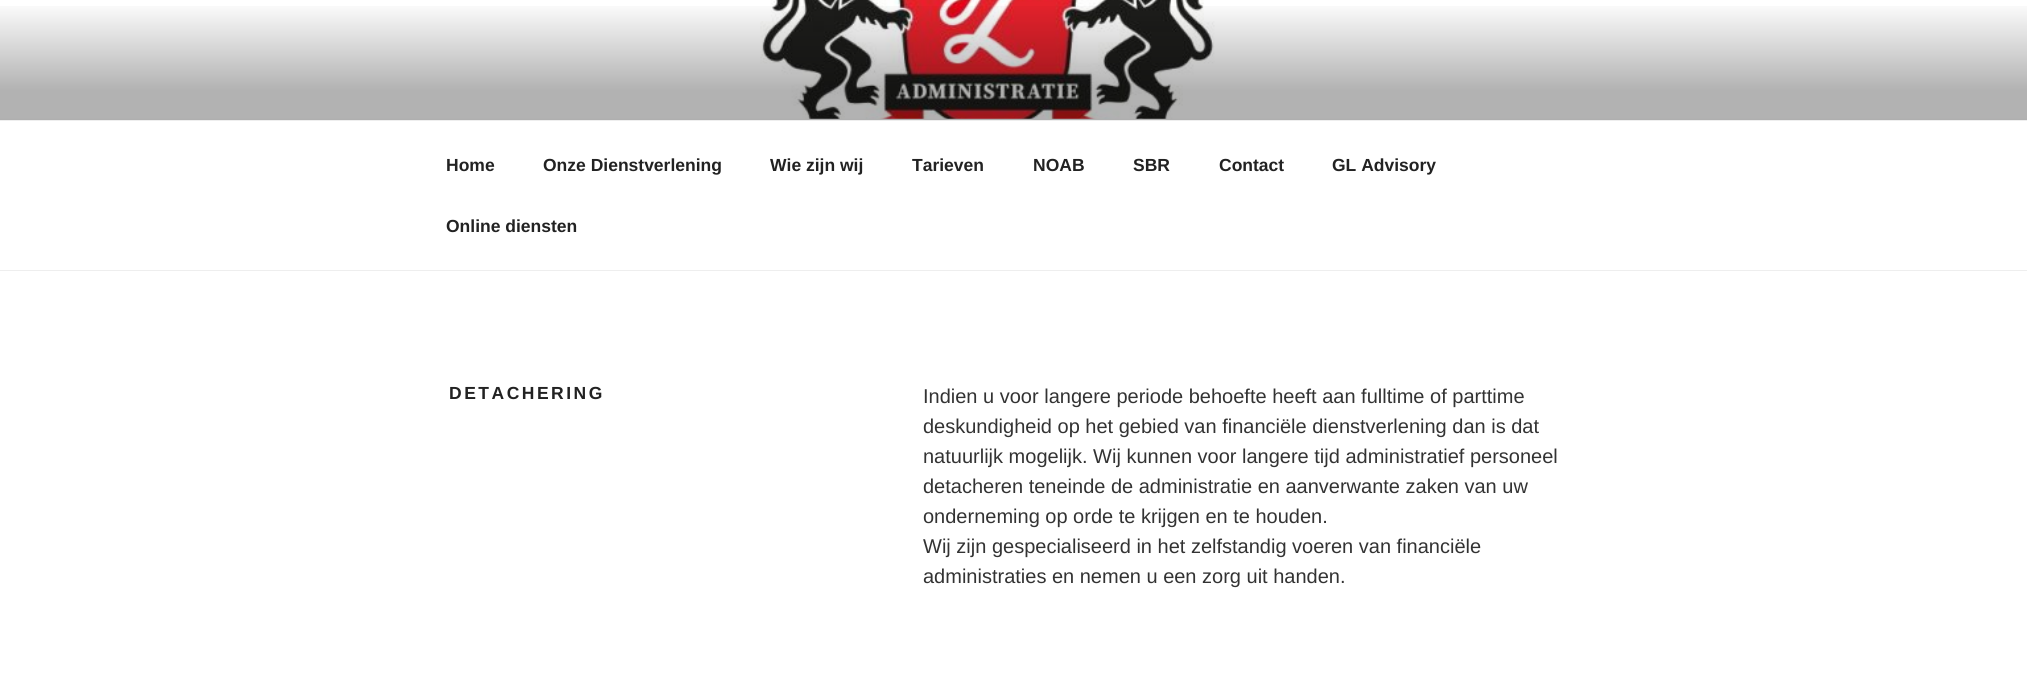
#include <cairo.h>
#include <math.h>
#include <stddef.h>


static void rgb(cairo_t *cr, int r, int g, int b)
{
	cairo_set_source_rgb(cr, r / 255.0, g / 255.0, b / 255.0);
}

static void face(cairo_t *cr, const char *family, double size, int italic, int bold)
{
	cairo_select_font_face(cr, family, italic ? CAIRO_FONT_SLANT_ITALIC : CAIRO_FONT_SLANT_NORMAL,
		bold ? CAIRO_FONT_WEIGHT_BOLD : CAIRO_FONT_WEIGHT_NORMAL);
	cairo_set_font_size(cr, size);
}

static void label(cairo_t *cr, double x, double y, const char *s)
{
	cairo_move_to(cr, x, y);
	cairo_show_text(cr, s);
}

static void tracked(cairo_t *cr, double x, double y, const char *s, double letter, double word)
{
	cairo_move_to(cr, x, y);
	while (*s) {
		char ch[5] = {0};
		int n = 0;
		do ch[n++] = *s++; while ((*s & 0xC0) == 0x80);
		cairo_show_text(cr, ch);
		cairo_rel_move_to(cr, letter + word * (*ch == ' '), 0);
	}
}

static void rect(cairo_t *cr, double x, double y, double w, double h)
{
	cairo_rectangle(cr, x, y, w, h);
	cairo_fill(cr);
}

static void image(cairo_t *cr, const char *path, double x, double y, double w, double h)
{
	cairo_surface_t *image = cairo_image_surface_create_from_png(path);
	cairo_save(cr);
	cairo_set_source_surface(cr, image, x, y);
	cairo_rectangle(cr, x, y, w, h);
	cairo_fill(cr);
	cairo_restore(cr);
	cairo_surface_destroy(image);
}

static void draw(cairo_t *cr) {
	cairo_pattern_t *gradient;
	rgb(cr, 255, 255, 255);
	cairo_paint(cr);
	rgb(cr, 250, 250, 250);
	rect(cr, 0, 118, 2027, 2);
	image(cr, "image0.png", 0, 0, 2027, 119);
	gradient = cairo_pattern_create_linear(1014, 0, 1014, 120);
	cairo_pattern_add_color_stop_rgba(gradient, 0, 0, 0, 0, 0);
	cairo_pattern_add_color_stop_rgba(gradient, 0.75, 0, 0, 0, 0.3);
	cairo_pattern_add_color_stop_rgba(gradient, 1, 0, 0, 0, 0.3);
	cairo_set_source(cr, gradient);
	cairo_pattern_destroy(gradient);
	rect(cr, 0, 6, 2027, 114);
	rgb(cr, 238, 238, 238);
	rect(cr, 0, 120, 2027, 1);
	rect(cr, 0, 270, 2027, 1);
	face(cr, "Liberation Sans", 17.5, 0, 1);
	rgb(cr, 34, 34, 34);
	label(cr, 446, 171, "Home");
	label(cr, 543, 171, "Onze Dienstverlening");
	label(cr, 770, 171, "Wie zijn wij");
	label(cr, 912, 171, "Tarieven");
	label(cr, 1033, 171, "NOAB");
	label(cr, 1133, 171, "SBR");
	label(cr, 1219, 171, "Contact");
	label(cr, 1332, 171, "GL Advisory");
	label(cr, 446, 232, "Online diensten");
	tracked(cr, 449, 399, "DETACHERING", 2.5, 0);
	face(cr, "Liberation Sans", 20, 0, 0);
	rgb(cr, 51, 51, 51);
	label(cr, 923, 403, "Indien u voor langere periode behoefte heeft aan fulltime of parttime");
	label(cr, 923, 433, "deskundigheid op het gebied van financiële dienstverlening dan is dat");
	label(cr, 923, 463, "natuurlijk mogelijk. Wij kunnen voor langere tijd administratief personeel");
	label(cr, 923, 493, "detacheren teneinde de administratie en aanverwante zaken van uw");
	label(cr, 923, 523, "onderneming op orde te krijgen en te houden.");
	label(cr, 923, 553, "Wij zijn gespecialiseerd in het zelfstandig voeren van financiële");
	label(cr, 923, 583, "administraties en nemen u een zorg uit handen.");
}

int main(void) {
	cairo_surface_t *surface = cairo_image_surface_create(CAIRO_FORMAT_RGB24, 2027, 691);
	cairo_t *cr = cairo_create(surface);
	cairo_font_options_t *options = cairo_font_options_create();
	cairo_font_options_set_hint_metrics(options, CAIRO_HINT_METRICS_OFF);
	cairo_font_options_set_hint_style(options, CAIRO_HINT_STYLE_NONE);
	cairo_set_font_options(cr, options);
	cairo_set_miter_limit(cr, 4);
	draw(cr);
	cairo_surface_write_to_png(surface, "render.png");
	cairo_font_options_destroy(options);
	cairo_destroy(cr);
	cairo_surface_destroy(surface);
	return 0;
}
